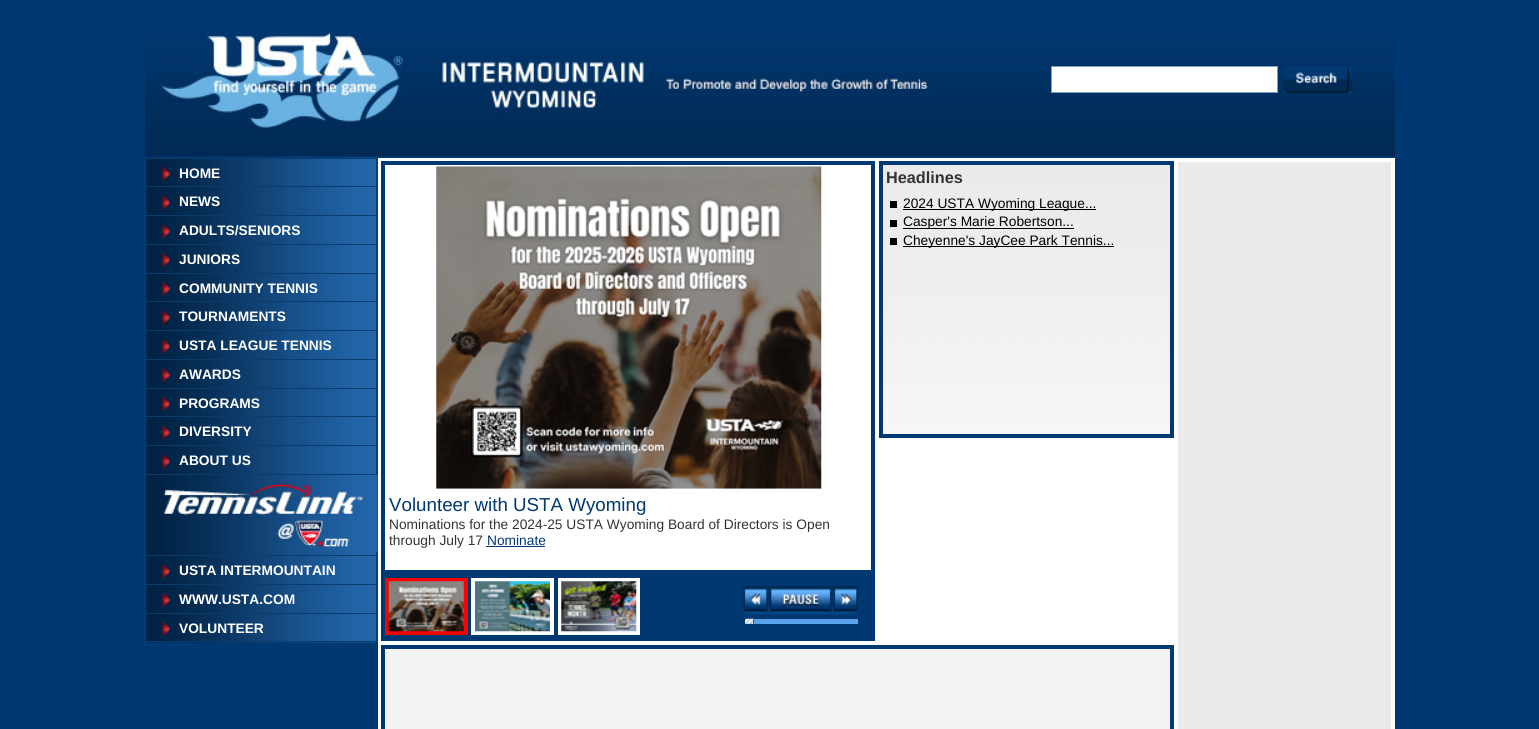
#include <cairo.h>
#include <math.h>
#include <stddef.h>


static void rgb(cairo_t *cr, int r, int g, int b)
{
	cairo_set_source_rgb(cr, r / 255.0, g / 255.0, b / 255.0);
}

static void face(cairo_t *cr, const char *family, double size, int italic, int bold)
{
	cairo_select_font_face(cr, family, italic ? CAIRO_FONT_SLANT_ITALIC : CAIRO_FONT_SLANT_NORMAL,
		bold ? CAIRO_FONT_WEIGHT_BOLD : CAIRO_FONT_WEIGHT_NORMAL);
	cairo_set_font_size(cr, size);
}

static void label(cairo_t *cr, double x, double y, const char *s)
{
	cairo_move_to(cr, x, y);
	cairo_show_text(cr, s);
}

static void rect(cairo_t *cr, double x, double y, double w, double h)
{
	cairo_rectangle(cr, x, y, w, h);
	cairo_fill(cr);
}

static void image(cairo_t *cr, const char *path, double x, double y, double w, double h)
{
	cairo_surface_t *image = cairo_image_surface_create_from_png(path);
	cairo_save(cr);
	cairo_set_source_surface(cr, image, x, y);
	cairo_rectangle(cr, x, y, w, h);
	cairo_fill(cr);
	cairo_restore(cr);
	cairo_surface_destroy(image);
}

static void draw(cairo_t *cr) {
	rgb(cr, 0, 56, 113);
	cairo_paint(cr);
	image(cr, "image0.png", 145, 31, 1250, 126);
	rgb(cr, 255, 255, 255);
	cairo_rectangle(cr, 1051.5, 66.5, 226, 26);
	cairo_fill_preserve(cr);
	rgb(cr, 126, 157, 185);
	cairo_set_line_width(cr, 1);
	cairo_stroke(cr);
	image(cr, "image1.png", 1284, 66, 69, 28);
	image(cr, "image2.png", 146, 157, 232, 486);
	rgb(cr, 10, 60, 109);
	rect(cr, 145, 158, 233, 1);
	rect(cr, 376, 158, 1, 485);
	rect(cr, 145, 158, 1, 485);
	rect(cr, 146, 186, 230, 1);
	image(cr, "image3.png", 162, 166, 9, 16);
	face(cr, "Liberation Sans", 13.75, 0, 1);
	rgb(cr, 255, 255, 255);
	label(cr, 179, 178, "HOME");
	rgb(cr, 10, 60, 109);
	rect(cr, 146, 215, 230, 1);
	image(cr, "image4.png", 162, 195, 9, 15);
	rgb(cr, 255, 255, 255);
	label(cr, 179, 206, "NEWS");
	rgb(cr, 10, 60, 109);
	rect(cr, 146, 244, 230, 1);
	image(cr, "image5.png", 162, 223, 9, 16);
	rgb(cr, 255, 255, 255);
	label(cr, 179, 235, "ADULTS/SENIORS");
	rgb(cr, 10, 60, 109);
	rect(cr, 146, 273, 230, 1);
	image(cr, "image6.png", 162, 252, 9, 16);
	rgb(cr, 255, 255, 255);
	label(cr, 179, 264, "JUNIORS");
	rgb(cr, 10, 60, 109);
	rect(cr, 146, 301, 230, 1);
	image(cr, "image3.png", 162, 281, 9, 16);
	rgb(cr, 255, 255, 255);
	label(cr, 179, 293, "COMMUNITY TENNIS");
	rgb(cr, 10, 60, 109);
	rect(cr, 146, 330, 230, 1);
	image(cr, "image4.png", 162, 310, 9, 15);
	rgb(cr, 255, 255, 255);
	label(cr, 179, 321, "TOURNAMENTS");
	rgb(cr, 10, 60, 109);
	rect(cr, 146, 359, 230, 1);
	image(cr, "image5.png", 162, 338, 9, 16);
	rgb(cr, 255, 255, 255);
	label(cr, 179, 350, "USTA LEAGUE TENNIS");
	rgb(cr, 10, 60, 109);
	rect(cr, 146, 388, 230, 1);
	image(cr, "image6.png", 162, 367, 9, 16);
	rgb(cr, 255, 255, 255);
	label(cr, 179, 379, "AWARDS");
	rgb(cr, 10, 60, 109);
	rect(cr, 146, 416, 230, 1);
	image(cr, "image3.png", 162, 396, 9, 16);
	rgb(cr, 255, 255, 255);
	label(cr, 179, 408, "PROGRAMS");
	rgb(cr, 10, 60, 109);
	rect(cr, 146, 445, 230, 1);
	image(cr, "image4.png", 162, 425, 9, 15);
	rgb(cr, 255, 255, 255);
	label(cr, 179, 436, "DIVERSITY");
	rgb(cr, 10, 60, 109);
	rect(cr, 146, 474, 230, 1);
	image(cr, "image5.png", 162, 453, 9, 16);
	rgb(cr, 255, 255, 255);
	label(cr, 179, 465, "ABOUT US");
	rgb(cr, 10, 60, 109);
	rect(cr, 146, 555, 230, 1);
	image(cr, "image7.png", 146, 475, 232, 78);
	rect(cr, 146, 584, 230, 1);
	image(cr, "image5.png", 162, 563, 9, 16);
	rgb(cr, 255, 255, 255);
	label(cr, 179, 575, "USTA INTERMOUNTAIN");
	rgb(cr, 10, 60, 109);
	rect(cr, 146, 613, 230, 1);
	image(cr, "image6.png", 162, 592, 9, 16);
	rgb(cr, 255, 255, 255);
	label(cr, 179, 604, "WWW.USTA.COM");
	rgb(cr, 10, 60, 109);
	rect(cr, 146, 641, 230, 1);
	image(cr, "image3.png", 162, 621, 9, 16);
	rgb(cr, 255, 255, 255);
	label(cr, 179, 633, "VOLUNTEER");
	rgb(cr, 234, 234, 234);
	rect(cr, 1178, 162, 213, 567);
	rgb(cr, 255, 255, 255);
	rect(cr, 1391, 158, 4, 571);
	rect(cr, 1178, 158, 213, 4);
	rect(cr, 378, 158, 800, 571);
	image(cr, "image8.png", 878, 165, 292, 273);
	cairo_rectangle(cr, 881, 163, 291, 273);
	rgb(cr, 0, 56, 113);
	cairo_set_line_width(cr, 4);
	cairo_stroke(cr);
	face(cr, "Liberation Sans", 16.25, 0, 1);
	rgb(cr, 51, 51, 51);
	label(cr, 886, 183, "Headlines");
	rgb(cr, 0, 0, 0);
	rect(cr, 903, 209, 193, 1);
	face(cr, "Liberation Sans", 13.75, 0, 0);
	label(cr, 903, 208, "2024 USTA Wyoming League...");
	rect(cr, 890, 201, 7, 7);
	rect(cr, 903, 228, 171, 1);
	label(cr, 903, 226, "Casper's Marie Robertson...");
	rect(cr, 890, 220, 7, 7);
	rect(cr, 903, 246, 211, 1);
	label(cr, 903, 245, "Cheyenne's JayCee Park Tennis...");
	rect(cr, 890, 238, 7, 7);
	rgb(cr, 0, 56, 113);
	rect(cr, 381, 161, 494, 480);
	rgb(cr, 255, 255, 255);
	rect(cr, 385, 165, 486, 405);
	image(cr, "image9.png", 436, 166, 386, 323);
	face(cr, "Liberation Sans", 18.75, 0, 0);
	rgb(cr, 0, 56, 113);
	label(cr, 389, 511, "Volunteer with USTA Wyoming");
	face(cr, "Liberation Sans", 13.75, 0, 0);
	rgb(cr, 51, 51, 51);
	label(cr, 389, 529, "Nominations for the 2024-25 USTA Wyoming Board of Directors is Open");
	label(cr, 389, 545, "through July 17");
	rgb(cr, 0, 56, 113);
	label(cr, 487, 545, "Nominate");
	rect(cr, 486, 546, 59, 1);
	rgb(cr, 251, 0, 0);
	rect(cr, 385, 578, 83, 57);
	image(cr, "image10.png", 388, 581, 76, 51);
	rgb(cr, 255, 255, 255);
	rect(cr, 471, 578, 83, 57);
	image(cr, "image11.png", 475, 581, 75, 51);
	rect(cr, 558, 578, 82, 57);
	image(cr, "image12.png", 561, 581, 76, 51);
	image(cr, "image13.png", 741, 586, 27, 29);
	image(cr, "image14.png", 767, 586, 67, 29);
	image(cr, "image15.png", 833, 586, 27, 29);
	rgb(cr, 90, 162, 236);
	rect(cr, 745, 619, 113, 5);
	image(cr, "image16.png", 745, 618, 9, 6);
	rgb(cr, 32, 93, 156);
	rect(cr, 753, 619, 1, 5);
	rgb(cr, 243, 243, 243);
	cairo_rectangle(cr, 383, 647, 789, 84);
	cairo_fill_preserve(cr);
	rgb(cr, 0, 56, 113);
	cairo_stroke(cr);
}

int main(void) {
	cairo_surface_t *surface = cairo_image_surface_create(CAIRO_FORMAT_RGB24, 1539, 729);
	cairo_t *cr = cairo_create(surface);
	cairo_font_options_t *options = cairo_font_options_create();
	cairo_font_options_set_hint_metrics(options, CAIRO_HINT_METRICS_OFF);
	cairo_font_options_set_hint_style(options, CAIRO_HINT_STYLE_NONE);
	cairo_set_font_options(cr, options);
	cairo_set_miter_limit(cr, 4);
	draw(cr);
	cairo_surface_write_to_png(surface, "render.png");
	cairo_font_options_destroy(options);
	cairo_destroy(cr);
	cairo_surface_destroy(surface);
	return 0;
}
